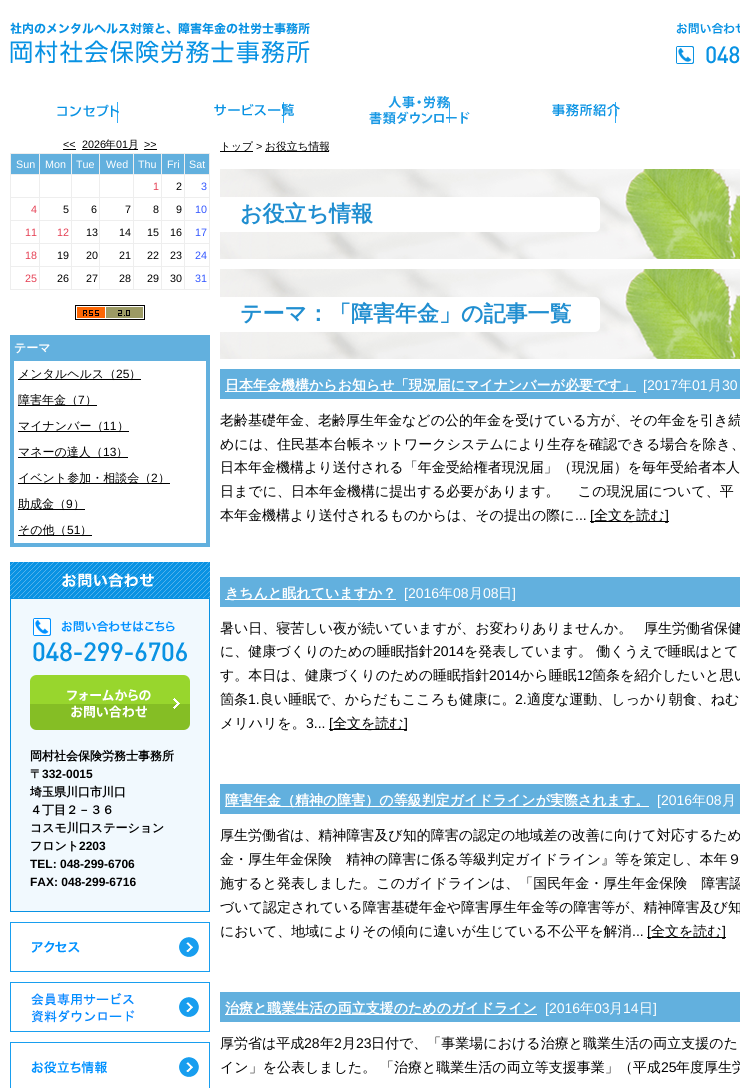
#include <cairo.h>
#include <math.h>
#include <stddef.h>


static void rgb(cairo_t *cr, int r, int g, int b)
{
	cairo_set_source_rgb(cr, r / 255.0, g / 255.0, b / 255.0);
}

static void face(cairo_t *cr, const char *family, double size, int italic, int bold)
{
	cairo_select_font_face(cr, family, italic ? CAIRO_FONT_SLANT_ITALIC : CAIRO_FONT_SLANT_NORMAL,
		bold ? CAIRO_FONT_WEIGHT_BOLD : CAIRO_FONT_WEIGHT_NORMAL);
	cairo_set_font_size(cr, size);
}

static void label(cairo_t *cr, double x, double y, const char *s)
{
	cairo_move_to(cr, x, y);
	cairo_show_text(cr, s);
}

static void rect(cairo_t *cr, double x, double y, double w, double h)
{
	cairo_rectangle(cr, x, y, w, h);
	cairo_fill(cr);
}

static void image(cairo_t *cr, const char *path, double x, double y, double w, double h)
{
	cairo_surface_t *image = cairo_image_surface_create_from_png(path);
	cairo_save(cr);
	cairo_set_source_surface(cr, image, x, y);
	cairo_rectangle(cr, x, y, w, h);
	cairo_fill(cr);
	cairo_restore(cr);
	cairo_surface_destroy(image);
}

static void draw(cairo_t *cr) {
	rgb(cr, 255, 255, 255);
	cairo_paint(cr);
	image(cr, "image0.png", 117, 102, 499, 21);
	image(cr, "image1.png", 10, 22, 300, 42);
	image(cr, "image2.png", 676, 23, 64, 41);
	image(cr, "image3.png", 57, 104, 62, 13);
	image(cr, "image4.png", 214, 103, 80, 13);
	image(cr, "image5.png", 369, 96, 101, 29);
	image(cr, "image6.png", 552, 103, 68, 14);
	face(cr, "Liberation Sans", 10.75, 0, 0);
	rgb(cr, 0, 0, 0);
	label(cr, 63, 148, "<<");
	rect(cr, 63, 149, 13, 1);
	label(cr, 82, 148, "2026");
	rect(cr, 82, 149, 56, 1);
	face(cr, "WenQuanYi Zen Hei Medium", 10.75, 0, 0);
	label(cr, 105, 148, "年");
	face(cr, "Liberation Sans", 10.75, 0, 0);
	label(cr, 116, 148, "01");
	face(cr, "WenQuanYi Zen Hei Medium", 10.75, 0, 0);
	label(cr, 128, 148, "月");
	face(cr, "Liberation Sans", 10.75, 0, 0);
	label(cr, 144, 148, ">>");
	rect(cr, 144, 149, 13, 1);
	rgb(cr, 238, 238, 238);
	rect(cr, 10, 153, 200, 1);
	rect(cr, 10, 153, 1, 137);
	rgb(cr, 98, 176, 222);
	rect(cr, 11, 154, 28, 20);
	rgb(cr, 238, 238, 238);
	rect(cr, 39, 154, 1, 136);
	rect(cr, 11, 174, 29, 1);
	rgb(cr, 255, 255, 255);
	label(cr, 16, 168, "Sun");
	rgb(cr, 98, 176, 222);
	rect(cr, 40, 154, 31, 20);
	rgb(cr, 238, 238, 238);
	rect(cr, 71, 154, 1, 136);
	rect(cr, 40, 174, 32, 1);
	rgb(cr, 255, 255, 255);
	label(cr, 45, 168, "Mon");
	rgb(cr, 98, 176, 222);
	rect(cr, 72, 154, 27, 20);
	rgb(cr, 238, 238, 238);
	rect(cr, 99, 154, 1, 136);
	rect(cr, 72, 174, 28, 1);
	rgb(cr, 255, 255, 255);
	label(cr, 76, 168, "Tue");
	rgb(cr, 98, 176, 222);
	rect(cr, 100, 154, 33, 20);
	rgb(cr, 238, 238, 238);
	rect(cr, 133, 154, 1, 136);
	rect(cr, 100, 174, 34, 1);
	rgb(cr, 255, 255, 255);
	label(cr, 106, 168, "Wed");
	rgb(cr, 98, 176, 222);
	rect(cr, 134, 154, 27, 20);
	rgb(cr, 238, 238, 238);
	rect(cr, 161, 154, 1, 136);
	rect(cr, 134, 174, 28, 1);
	rgb(cr, 255, 255, 255);
	label(cr, 138, 168, "Thu");
	rgb(cr, 98, 176, 222);
	rect(cr, 162, 154, 22, 20);
	rgb(cr, 238, 238, 238);
	rect(cr, 184, 154, 1, 136);
	rect(cr, 162, 174, 23, 1);
	rgb(cr, 255, 255, 255);
	label(cr, 167, 168, "Fri");
	rgb(cr, 98, 176, 222);
	rect(cr, 185, 154, 24, 20);
	rgb(cr, 238, 238, 238);
	rect(cr, 209, 154, 1, 136);
	rect(cr, 185, 174, 25, 1);
	rgb(cr, 255, 255, 255);
	label(cr, 189, 168, "Sat");
	rgb(cr, 229, 65, 85);
	label(cr, 153, 190, "1");
	rgb(cr, 0, 0, 0);
	label(cr, 176, 190, "2");
	rgb(cr, 51, 87, 255);
	label(cr, 201, 190, "3");
	rgb(cr, 238, 238, 238);
	rect(cr, 11, 197, 199, 1);
	rect(cr, 11, 220, 199, 1);
	rgb(cr, 229, 65, 85);
	label(cr, 31, 213, "4");
	rgb(cr, 0, 0, 0);
	label(cr, 63, 213, "5");
	label(cr, 91, 213, "6");
	label(cr, 125, 213, "7");
	label(cr, 153, 213, "8");
	label(cr, 176, 213, "9");
	rgb(cr, 51, 87, 255);
	label(cr, 195, 213, "10");
	rgb(cr, 238, 238, 238);
	rect(cr, 11, 243, 199, 1);
	rgb(cr, 229, 65, 85);
	label(cr, 25, 236, "11");
	label(cr, 57, 236, "12");
	rgb(cr, 0, 0, 0);
	label(cr, 86, 236, "13");
	label(cr, 119, 236, "14");
	label(cr, 147, 236, "15");
	label(cr, 170, 236, "16");
	rgb(cr, 51, 87, 255);
	label(cr, 195, 236, "17");
	rgb(cr, 238, 238, 238);
	rect(cr, 11, 266, 199, 1);
	rgb(cr, 229, 65, 85);
	label(cr, 25, 259, "18");
	rgb(cr, 0, 0, 0);
	label(cr, 57, 259, "19");
	label(cr, 86, 259, "20");
	label(cr, 119, 259, "21");
	label(cr, 147, 259, "22");
	label(cr, 170, 259, "23");
	rgb(cr, 51, 87, 255);
	label(cr, 195, 259, "24");
	rgb(cr, 238, 238, 238);
	rect(cr, 11, 289, 199, 1);
	rgb(cr, 229, 65, 85);
	label(cr, 25, 282, "25");
	rgb(cr, 0, 0, 0);
	label(cr, 57, 282, "26");
	label(cr, 86, 282, "27");
	label(cr, 119, 282, "28");
	label(cr, 147, 282, "29");
	label(cr, 170, 282, "30");
	rgb(cr, 51, 87, 255);
	label(cr, 195, 282, "31");
	image(cr, "image7.png", 75, 305, 70, 15);
	rgb(cr, 98, 176, 222);
	rect(cr, 10, 335, 200, 212);
	face(cr, "WenQuanYi Zen Hei", 12, 0, 1);
	rgb(cr, 255, 255, 255);
	label(cr, 14, 352, "テーマ");
	rect(cr, 14, 361, 192, 182);
	rgb(cr, 0, 0, 0);
	rect(cr, 18, 379, 123, 1);
	face(cr, "WenQuanYi Zen Hei Medium", 12, 0, 0);
	label(cr, 18, 378, "メンタルヘルス（");
	face(cr, "Liberation Sans", 12, 0, 0);
	label(cr, 116, 378, "25");
	face(cr, "WenQuanYi Zen Hei Medium", 12, 0, 0);
	label(cr, 129, 378, "）");
	rect(cr, 18, 405, 79, 1);
	label(cr, 18, 404, "障害年金（");
	face(cr, "Liberation Sans", 12, 0, 0);
	label(cr, 78, 404, "7");
	face(cr, "WenQuanYi Zen Hei Medium", 12, 0, 0);
	label(cr, 85, 404, "）");
	rect(cr, 18, 431, 111, 1);
	label(cr, 18, 430, "マイナンバー（");
	face(cr, "Liberation Sans", 12, 0, 0);
	label(cr, 103, 430, "11");
	face(cr, "WenQuanYi Zen Hei Medium", 12, 0, 0);
	label(cr, 117, 430, "）");
	rect(cr, 18, 457, 110, 1);
	label(cr, 18, 456, "マネーの達人（");
	face(cr, "Liberation Sans", 12, 0, 0);
	label(cr, 103, 456, "13");
	face(cr, "WenQuanYi Zen Hei Medium", 12, 0, 0);
	label(cr, 116, 456, "）");
	rect(cr, 18, 483, 152, 1);
	label(cr, 18, 482, "イベント参加・相談会（");
	face(cr, "Liberation Sans", 12, 0, 0);
	label(cr, 151, 482, "2");
	face(cr, "WenQuanYi Zen Hei Medium", 12, 0, 0);
	label(cr, 158, 482, "）");
	rect(cr, 18, 509, 67, 1);
	label(cr, 18, 508, "助成金（");
	face(cr, "Liberation Sans", 12, 0, 0);
	label(cr, 66, 508, "9");
	face(cr, "WenQuanYi Zen Hei Medium", 12, 0, 0);
	label(cr, 73, 508, "）");
	rect(cr, 18, 535, 74, 1);
	label(cr, 18, 534, "その他（");
	face(cr, "Liberation Sans", 12, 0, 0);
	label(cr, 67, 534, "51");
	face(cr, "WenQuanYi Zen Hei Medium", 12, 0, 0);
	label(cr, 80, 534, "）");
	image(cr, "image8.png", 10, 562, 200, 350);
	face(cr, "WenQuanYi Zen Hei", 12, 0, 1);
	label(cr, 30, 760, "岡村社会保険労務士事務所");
	label(cr, 30, 778, "〒");
	face(cr, "Liberation Sans", 12, 0, 1);
	label(cr, 42, 778, "332-0015");
	face(cr, "WenQuanYi Zen Hei", 12, 0, 1);
	label(cr, 30, 796, "埼玉県川口市川口");
	label(cr, 30, 814, "４丁目２－３６");
	label(cr, 30, 832, "コスモ川口ステーション");
	label(cr, 30, 850, "フロント");
	face(cr, "Liberation Sans", 12, 0, 1);
	label(cr, 79, 850, "2203");
	label(cr, 30, 868, "TEL: 048-299-6706");
	label(cr, 30, 886, "FAX: 048-299-6716");
	image(cr, "image9.png", 10, 922, 200, 50);
	image(cr, "image10.png", 10, 982, 200, 50);
	image(cr, "image11.png", 10, 1042, 200, 46);
	rect(cr, 220, 151, 33, 1);
	face(cr, "WenQuanYi Zen Hei Medium", 10.75, 0, 0);
	label(cr, 220, 150, "トップ");
	face(cr, "Liberation Sans", 10.75, 0, 0);
	label(cr, 256, 150, ">");
	rect(cr, 265, 151, 64, 1);
	face(cr, "WenQuanYi Zen Hei Medium", 10.75, 0, 0);
	label(cr, 265, 150, "お役立ち情報");
	image(cr, "image12.png", 220, 169, 520, 90);
	face(cr, "WenQuanYi Zen Hei", 22, 0, 1);
	rgb(cr, 32, 142, 208);
	label(cr, 240, 221, "お役立ち情報");
	image(cr, "image12.png", 220, 269, 520, 90);
	label(cr, 240, 321, "テーマ：「障害年金」の記事一覧");
	rgb(cr, 98, 176, 222);
	rect(cr, 220, 369, 520, 30);
	rgb(cr, 255, 255, 255);
	rect(cr, 225, 391, 411, 1);
	face(cr, "WenQuanYi Zen Hei", 14, 0, 1);
	label(cr, 225, 390, "日本年金機構からお知らせ「現況届にマイナンバーが必要です」");
	face(cr, "Liberation Sans", 14, 0, 0);
	label(cr, 643, 390, "[2017");
	face(cr, "WenQuanYi Zen Hei Medium", 14, 0, 0);
	label(cr, 678, 390, "年");
	face(cr, "Liberation Sans", 14, 0, 0);
	label(cr, 692, 390, "01");
	face(cr, "WenQuanYi Zen Hei Medium", 14, 0, 0);
	label(cr, 708, 390, "月");
	face(cr, "Liberation Sans", 14, 0, 0);
	label(cr, 722, 390, "30");
	face(cr, "WenQuanYi Zen Hei Medium", 14, 0, 0);
	rgb(cr, 0, 0, 0);
	label(cr, 220, 425, "老齢基礎年金、老齢厚生年金などの公的年金を受けている方が、その年金を引き続");
	label(cr, 220, 449, "めには、住民基本台帳ネットワークシステムにより生存を確認できる場合を除き、");
	label(cr, 220, 472, "日本年金機構より送付される「年金受給権者現況届」（現況届）を毎年受給者本人");
	label(cr, 220, 496, "日までに、日本年金機構に提出する必要があります。 　この現況届について、平");
	label(cr, 220, 520, "本年金機構より送付されるものからは、その提出の際に");
	face(cr, "Liberation Sans", 14, 0, 0);
	label(cr, 575, 520, "...");
	rect(cr, 590, 521, 79, 1);
	label(cr, 590, 520, "[");
	face(cr, "WenQuanYi Zen Hei Medium", 14, 0, 0);
	label(cr, 594, 520, "全文を読む");
	face(cr, "Liberation Sans", 14, 0, 0);
	label(cr, 665, 520, "]");
	rgb(cr, 98, 176, 222);
	rect(cr, 220, 577, 520, 30);
	rgb(cr, 255, 255, 255);
	rect(cr, 225, 599, 171, 1);
	face(cr, "WenQuanYi Zen Hei", 14, 0, 1);
	label(cr, 225, 598, "きちんと眠れていますか？");
	face(cr, "Liberation Sans", 14, 0, 0);
	label(cr, 404, 598, "[2016");
	face(cr, "WenQuanYi Zen Hei Medium", 14, 0, 0);
	label(cr, 439, 598, "年");
	face(cr, "Liberation Sans", 14, 0, 0);
	label(cr, 453, 598, "08");
	face(cr, "WenQuanYi Zen Hei Medium", 14, 0, 0);
	label(cr, 469, 598, "月");
	face(cr, "Liberation Sans", 14, 0, 0);
	label(cr, 483, 598, "08");
	face(cr, "WenQuanYi Zen Hei Medium", 14, 0, 0);
	label(cr, 498, 598, "日");
	face(cr, "Liberation Sans", 14, 0, 0);
	label(cr, 512, 598, "]");
	face(cr, "WenQuanYi Zen Hei Medium", 14, 0, 0);
	rgb(cr, 0, 0, 0);
	label(cr, 220, 633, "暑い日、寝苦しい夜が続いていますが、お変わりありませんか。");
	label(cr, 644, 633, "厚生労働省保健");
	label(cr, 220, 656, "に、健康づくりのための睡眠指針");
	face(cr, "Liberation Sans", 14, 0, 0);
	label(cr, 433, 656, "2014");
	face(cr, "WenQuanYi Zen Hei Medium", 14, 0, 0);
	label(cr, 464, 656, "を発表しています。 働くうえで睡眠はとて");
	label(cr, 220, 680, "す。本日は、健康づくりのための睡眠指針");
	face(cr, "Liberation Sans", 14, 0, 0);
	label(cr, 489, 680, "2014");
	face(cr, "WenQuanYi Zen Hei Medium", 14, 0, 0);
	label(cr, 520, 680, "から睡眠");
	face(cr, "Liberation Sans", 14, 0, 0);
	label(cr, 577, 680, "12");
	face(cr, "WenQuanYi Zen Hei Medium", 14, 0, 0);
	label(cr, 592, 680, "箇条を紹介したいと思い");
	label(cr, 220, 704, "箇条");
	face(cr, "Liberation Sans", 14, 0, 0);
	label(cr, 248, 704, "1.");
	face(cr, "WenQuanYi Zen Hei Medium", 14, 0, 0);
	label(cr, 260, 704, "良い睡眠で、からだもこころも健康に。");
	face(cr, "Liberation Sans", 14, 0, 0);
	label(cr, 515, 704, "2.");
	face(cr, "WenQuanYi Zen Hei Medium", 14, 0, 0);
	label(cr, 527, 704, "適度な運動、しっかり朝食、ねむ");
	label(cr, 220, 728, "メリハリを。");
	face(cr, "Liberation Sans", 14, 0, 0);
	label(cr, 306, 728, "3...");
	rect(cr, 329, 729, 78, 1);
	label(cr, 329, 728, "[");
	face(cr, "WenQuanYi Zen Hei Medium", 14, 0, 0);
	label(cr, 333, 728, "全文を読む");
	face(cr, "Liberation Sans", 14, 0, 0);
	label(cr, 404, 728, "]");
	rgb(cr, 98, 176, 222);
	rect(cr, 220, 784, 520, 30);
	rgb(cr, 255, 255, 255);
	rect(cr, 225, 806, 424, 1);
	face(cr, "WenQuanYi Zen Hei", 14, 0, 1);
	label(cr, 225, 805, "障害年金（精神の障害）の等級判定ガイドラインが実際されます。");
	face(cr, "Liberation Sans", 14, 0, 0);
	label(cr, 657, 805, "[2016");
	face(cr, "WenQuanYi Zen Hei Medium", 14, 0, 0);
	label(cr, 692, 805, "年");
	face(cr, "Liberation Sans", 14, 0, 0);
	label(cr, 706, 805, "08");
	face(cr, "WenQuanYi Zen Hei Medium", 14, 0, 0);
	label(cr, 722, 805, "月");
	rgb(cr, 0, 0, 0);
	label(cr, 220, 840, "厚生労働省は、精神障害及び知的障害の認定の地域差の改善に向けて対応するため");
	label(cr, 220, 864, "金・厚生年金保険　精神の障害に係る等級判定ガイドライン』等を策定し、本年９");
	label(cr, 220, 888, "施すると発表しました。このガイドラインは、「国民年金・厚生年金保険　障害認");
	label(cr, 220, 912, "づいて認定されている障害基礎年金や障害厚生年金等の障害等が、精神障害及び知");
	label(cr, 220, 936, "において、地域によりその傾向に違いが生じている不公平を解消");
	face(cr, "Liberation Sans", 14, 0, 0);
	label(cr, 632, 936, "...");
	rect(cr, 647, 937, 79, 1);
	label(cr, 647, 936, "[");
	face(cr, "WenQuanYi Zen Hei Medium", 14, 0, 0);
	label(cr, 651, 936, "全文を読む");
	face(cr, "Liberation Sans", 14, 0, 0);
	label(cr, 722, 936, "]");
	rgb(cr, 98, 176, 222);
	rect(cr, 220, 992, 520, 30);
	rgb(cr, 255, 255, 255);
	rect(cr, 225, 1014, 312, 1);
	face(cr, "WenQuanYi Zen Hei", 14, 0, 1);
	label(cr, 225, 1013, "治療と職業生活の両立支援のためのガイドライン");
	face(cr, "Liberation Sans", 14, 0, 0);
	label(cr, 545, 1013, "[2016");
	face(cr, "WenQuanYi Zen Hei Medium", 14, 0, 0);
	label(cr, 580, 1013, "年");
	face(cr, "Liberation Sans", 14, 0, 0);
	label(cr, 594, 1013, "03");
	face(cr, "WenQuanYi Zen Hei Medium", 14, 0, 0);
	label(cr, 609, 1013, "月");
	face(cr, "Liberation Sans", 14, 0, 0);
	label(cr, 623, 1013, "14");
	face(cr, "WenQuanYi Zen Hei Medium", 14, 0, 0);
	label(cr, 639, 1013, "日");
	face(cr, "Liberation Sans", 14, 0, 0);
	label(cr, 653, 1013, "]");
	face(cr, "WenQuanYi Zen Hei Medium", 14, 0, 0);
	rgb(cr, 0, 0, 0);
	label(cr, 220, 1048, "厚労省は平成");
	face(cr, "Liberation Sans", 14, 0, 0);
	label(cr, 304, 1048, "28");
	face(cr, "WenQuanYi Zen Hei Medium", 14, 0, 0);
	label(cr, 320, 1048, "年");
	face(cr, "Liberation Sans", 14, 0, 0);
	label(cr, 334, 1048, "2");
	face(cr, "WenQuanYi Zen Hei Medium", 14, 0, 0);
	label(cr, 342, 1048, "月");
	face(cr, "Liberation Sans", 14, 0, 0);
	label(cr, 356, 1048, "23");
	face(cr, "WenQuanYi Zen Hei Medium", 14, 0, 0);
	label(cr, 371, 1048, "日付で、「事業場における治療と職業生活の両立支援のた");
	label(cr, 220, 1072, "イン」を公表しました。");
	label(cr, 380, 1072, "「治療と職業生活の両立等支援事業」（平成");
	face(cr, "Liberation Sans", 14, 0, 0);
	label(cr, 661, 1072, "25");
	face(cr, "WenQuanYi Zen Hei Medium", 14, 0, 0);
	label(cr, 676, 1072, "年度厚生労");
}

int main(void) {
	cairo_surface_t *surface = cairo_image_surface_create(CAIRO_FORMAT_RGB24, 740, 1088);
	cairo_t *cr = cairo_create(surface);
	cairo_font_options_t *options = cairo_font_options_create();
	cairo_font_options_set_hint_metrics(options, CAIRO_HINT_METRICS_OFF);
	cairo_font_options_set_hint_style(options, CAIRO_HINT_STYLE_NONE);
	cairo_set_font_options(cr, options);
	cairo_set_miter_limit(cr, 4);
	draw(cr);
	cairo_surface_write_to_png(surface, "render.png");
	cairo_font_options_destroy(options);
	cairo_destroy(cr);
	cairo_surface_destroy(surface);
	return 0;
}
